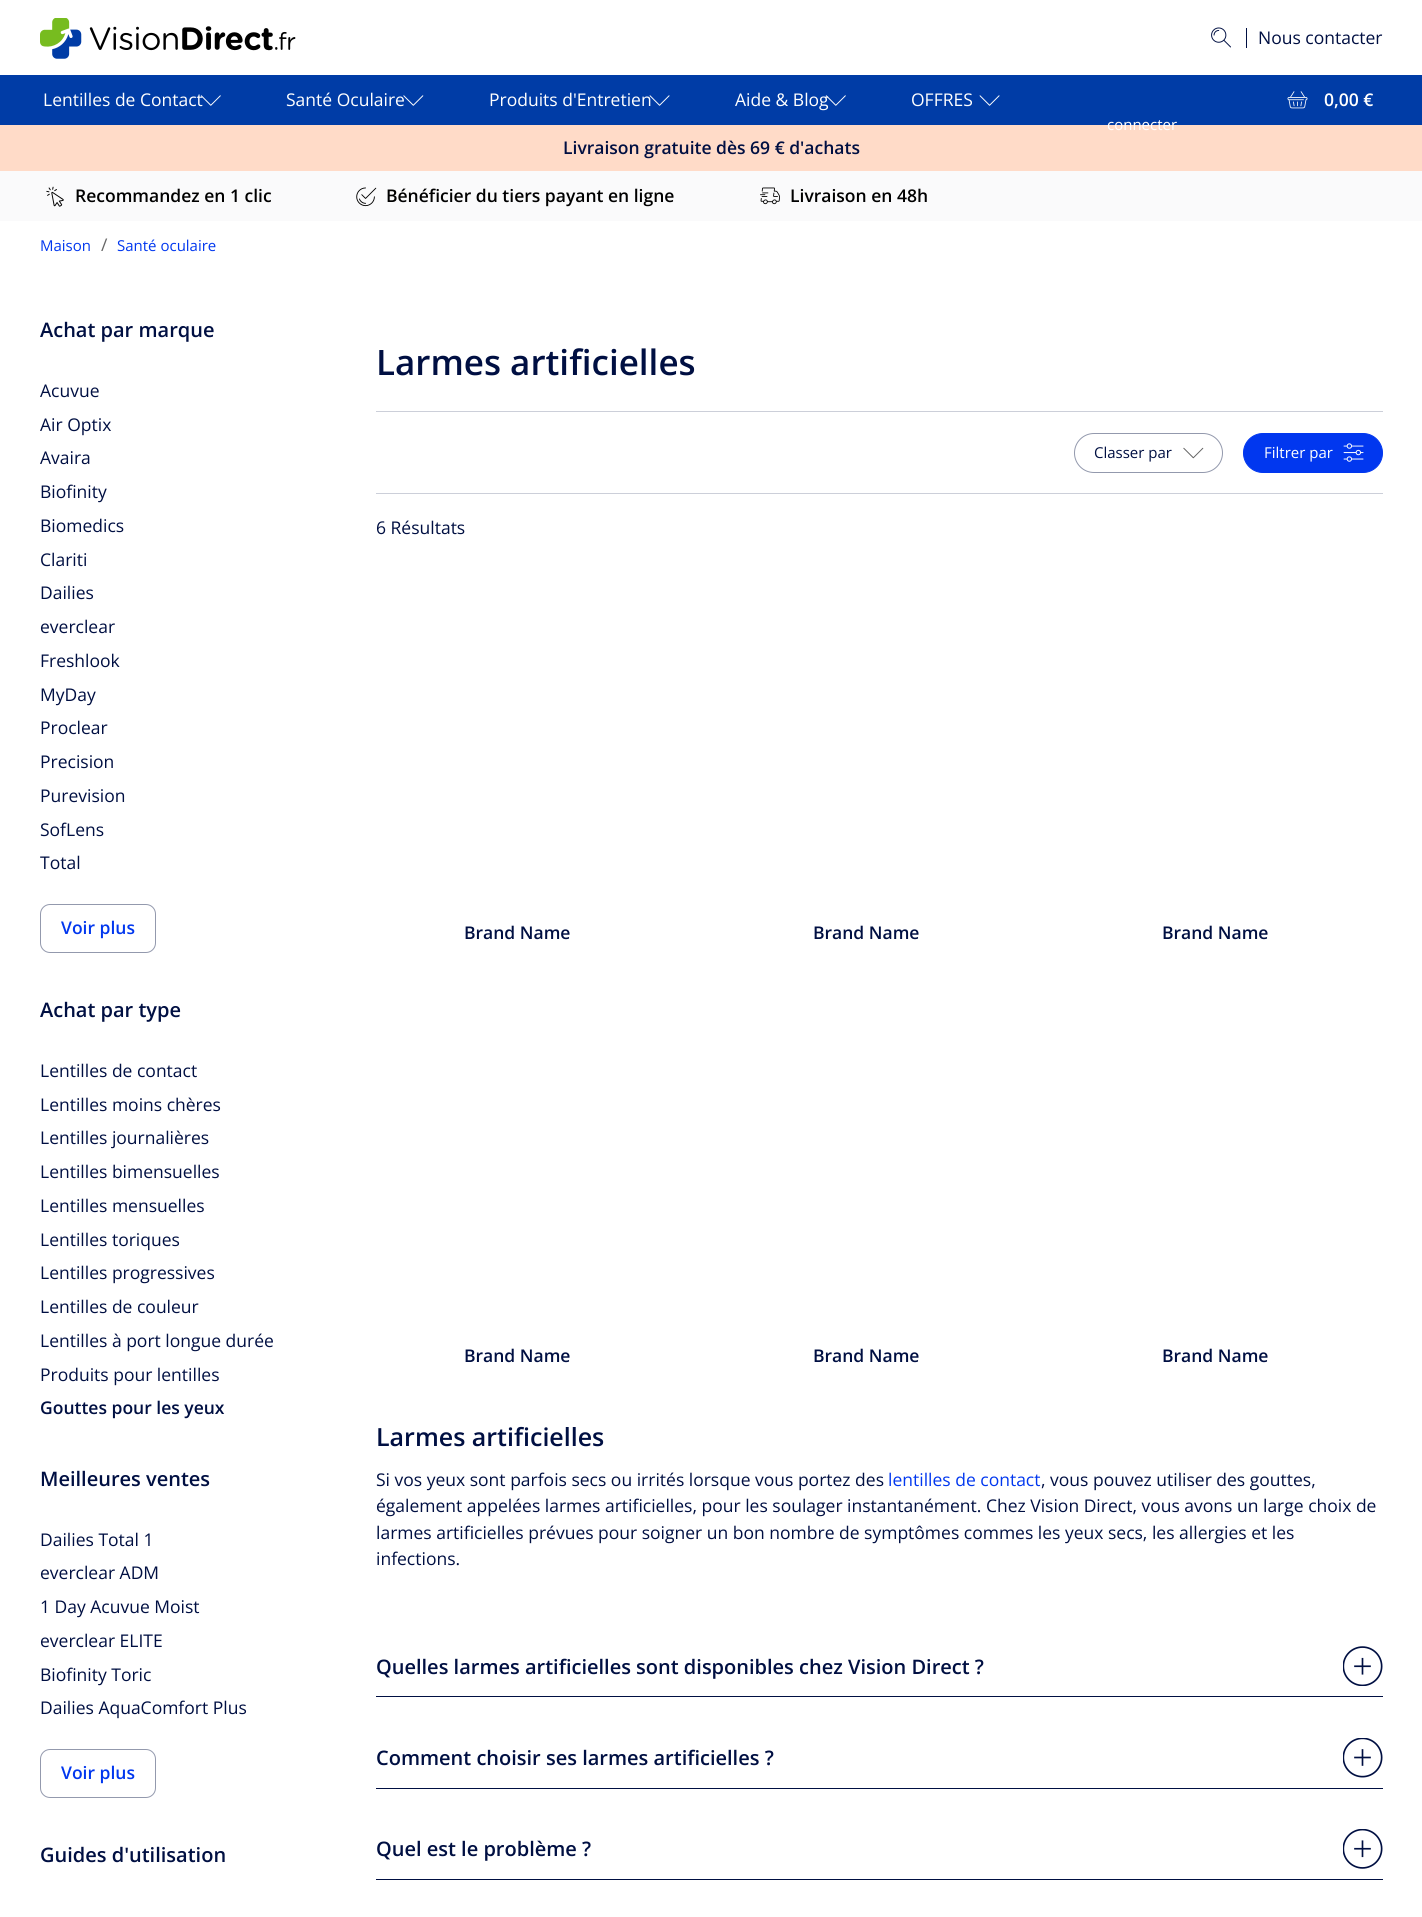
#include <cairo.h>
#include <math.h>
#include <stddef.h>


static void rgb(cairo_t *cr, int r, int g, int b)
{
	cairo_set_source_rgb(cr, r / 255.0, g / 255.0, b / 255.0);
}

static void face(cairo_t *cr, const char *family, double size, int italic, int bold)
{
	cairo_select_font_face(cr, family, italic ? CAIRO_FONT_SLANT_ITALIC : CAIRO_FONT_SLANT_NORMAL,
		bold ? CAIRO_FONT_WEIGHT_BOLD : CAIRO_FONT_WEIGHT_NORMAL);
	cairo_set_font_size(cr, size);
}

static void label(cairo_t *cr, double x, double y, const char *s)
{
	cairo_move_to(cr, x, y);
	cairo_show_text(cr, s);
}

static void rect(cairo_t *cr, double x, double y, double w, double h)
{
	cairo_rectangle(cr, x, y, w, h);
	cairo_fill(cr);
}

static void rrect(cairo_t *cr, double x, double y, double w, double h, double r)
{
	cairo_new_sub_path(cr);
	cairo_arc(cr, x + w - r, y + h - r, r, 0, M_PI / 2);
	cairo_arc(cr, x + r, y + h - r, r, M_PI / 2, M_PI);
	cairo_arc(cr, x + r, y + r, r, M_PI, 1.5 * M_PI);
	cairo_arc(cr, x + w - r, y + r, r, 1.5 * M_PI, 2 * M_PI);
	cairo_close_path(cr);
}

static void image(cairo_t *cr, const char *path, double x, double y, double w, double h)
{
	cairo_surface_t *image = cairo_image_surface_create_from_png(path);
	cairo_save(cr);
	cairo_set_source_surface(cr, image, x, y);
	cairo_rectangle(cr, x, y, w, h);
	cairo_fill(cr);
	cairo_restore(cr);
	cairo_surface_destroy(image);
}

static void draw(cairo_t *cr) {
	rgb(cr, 255, 255, 255);
	cairo_paint(cr);
	image(cr, "image0.png", 40, 18, 256, 41);
	image(cr, "image1.png", 1211, 27, 20, 21);
	rgb(cr, 0, 15, 66);
	rect(cr, 1246, 28, 1, 20);
	face(cr, "Open Sans", 17.5, 0, 0);
	label(cr, 1258, 44, "Nous contacter");
	rgb(cr, 0, 60, 166);
	rect(cr, 0, 75, 1422, 50);
	image(cr, "image2.png", 200, 95, 21, 11);
	rgb(cr, 255, 255, 255);
	label(cr, 43, 106, "Lentilles de Contact");
	image(cr, "image3.png", 403, 95, 21, 11);
	label(cr, 286, 106, "Santé Oculaire");
	image(cr, "image4.png", 649, 95, 21, 11);
	label(cr, 489, 106, "Produits d'Entretien");
	image(cr, "image2.png", 825, 95, 21, 11);
	label(cr, 735, 106, "Aide & Blog");
	label(cr, 911, 106, "OFFRES");
	image(cr, "image4.png", 979, 95, 21, 11);
	image(cr, "image5.png", 1287, 91, 21, 18);
	face(cr, "Open Sans SemiBold", 17.5, 0, 0);
	label(cr, 1324, 106, "0,00 €");
	rgb(cr, 255, 219, 200);
	rect(cr, 0, 125, 1422, 46);
	face(cr, "Open Sans", 15, 0, 0);
	rgb(cr, 255, 255, 255);
	label(cr, 1107, 130, "connecter");
	face(cr, "Open Sans SemiBold", 17.5, 0, 0);
	rgb(cr, 0, 15, 66);
	label(cr, 563, 154, "Livraison gratuite dès 69 € d'achats");
	rgb(cr, 250, 250, 251);
	rect(cr, 0, 171, 1422, 50);
	image(cr, "image6.png", 46, 186, 18, 21);
	rgb(cr, 0, 0, 0);
	label(cr, 75, 202, "Recommandez en 1 clic");
	image(cr, "image7.png", 356, 187, 21, 20);
	label(cr, 386, 202, "Bénéficier du tiers payant en ligne");
	image(cr, "image8.png", 760, 187, 20, 18);
	label(cr, 790, 202, "Livraison en 48h");
	face(cr, "Open Sans", 15, 0, 0);
	rgb(cr, 1, 55, 239);
	label(cr, 40, 251, "Maison");
	face(cr, "Open Sans", 17.5, 0, 0);
	rgb(cr, 102, 102, 102);
	label(cr, 101, 251, "/");
	face(cr, "Open Sans", 15, 0, 0);
	rgb(cr, 1, 55, 239);
	label(cr, 117, 251, "Santé oculaire");
	face(cr, "Open Sans SemiBold", 20, 0, 0);
	rgb(cr, 0, 15, 66);
	label(cr, 40, 337, "Achat par marque");
	face(cr, "Open Sans", 17.5, 0, 0);
	label(cr, 40, 397, "Acuvue");
	label(cr, 40, 431, "Air Optix");
	label(cr, 40, 464, "Avaira");
	label(cr, 40, 498, "Biofinity");
	label(cr, 40, 532, "Biomedics");
	label(cr, 40, 566, "Clariti");
	label(cr, 40, 599, "Dailies");
	label(cr, 40, 633, "everclear");
	label(cr, 40, 667, "Freshlook");
	label(cr, 40, 701, "MyDay");
	label(cr, 40, 734, "Proclear");
	label(cr, 40, 768, "Precision");
	label(cr, 40, 802, "Purevision");
	label(cr, 40, 836, "SofLens");
	label(cr, 40, 869, "Total");
	rrect(cr, 40.5, 904.5, 115, 48, 9.5);
	rgb(cr, 147, 153, 173);
	cairo_set_line_width(cr, 1);
	cairo_stroke(cr);
	face(cr, "Open Sans SemiBold", 17.5, 0, 0);
	rgb(cr, 1, 55, 239);
	label(cr, 61, 934, "Voir plus");
	face(cr, "Open Sans SemiBold", 20, 0, 0);
	rgb(cr, 0, 15, 66);
	label(cr, 40, 1017, "Achat par type");
	face(cr, "Open Sans", 17.5, 0, 0);
	label(cr, 40, 1077, "Lentilles de contact");
	label(cr, 40, 1111, "Lentilles moins chères");
	label(cr, 40, 1144, "Lentilles journalières");
	label(cr, 40, 1178, "Lentilles bimensuelles");
	label(cr, 40, 1212, "Lentilles mensuelles");
	label(cr, 40, 1246, "Lentilles toriques");
	label(cr, 40, 1279, "Lentilles progressives");
	label(cr, 40, 1313, "Lentilles de couleur");
	label(cr, 40, 1347, "Lentilles à port longue durée");
	label(cr, 40, 1381, "Produits pour lentilles");
	face(cr, "Open Sans SemiBold", 17.5, 0, 0);
	label(cr, 40, 1414, "Gouttes pour les yeux");
	face(cr, "Open Sans SemiBold", 20, 0, 0);
	label(cr, 40, 1486, "Meilleures ventes");
	face(cr, "Open Sans", 17.5, 0, 0);
	label(cr, 40, 1546, "Dailies Total 1");
	label(cr, 40, 1579, "everclear ADM");
	label(cr, 40, 1613, "1 Day Acuvue Moist");
	label(cr, 40, 1647, "everclear ELITE");
	label(cr, 40, 1681, "Biofinity Toric");
	label(cr, 40, 1714, "Dailies AquaComfort Plus");
	rrect(cr, 40.5, 1749.5, 115, 48, 9.5);
	rgb(cr, 147, 153, 173);
	cairo_stroke(cr);
	face(cr, "Open Sans SemiBold", 17.5, 0, 0);
	rgb(cr, 1, 55, 239);
	label(cr, 61, 1779, "Voir plus");
	face(cr, "Open Sans SemiBold", 20, 0, 0);
	rgb(cr, 0, 15, 66);
	label(cr, 40, 1862, "Guides d'utilisation");
	face(cr, "Open Sans SemiBold", 35, 0, 0);
	label(cr, 376, 375, "Larmes artificielles");
	rgb(cr, 204, 207, 217);
	rect(cr, 376, 411, 1007, 1);
	rrect(cr, 1074.5, 433.5, 148, 39, 19.5);
	rgb(cr, 147, 153, 173);
	cairo_stroke(cr);
	face(cr, "Open Sans", 15, 0, 0);
	rgb(cr, 0, 15, 66);
	label(cr, 1094, 458, "Classer par");
	image(cr, "image9.png", 1183, 447, 21, 12);
	rgb(cr, 1, 55, 239);
	rrect(cr, 1243.5, 433.5, 139, 39, 19.5);
	cairo_fill_preserve(cr);
	cairo_stroke(cr);
	rgb(cr, 255, 255, 255);
	label(cr, 1264, 458, "Filtrer par");
	image(cr, "image10.png", 1343, 443, 21, 19);
	rgb(cr, 204, 207, 217);
	rect(cr, 376, 493, 1007, 1);
	face(cr, "Open Sans", 17.5, 0, 0);
	rgb(cr, 0, 15, 66);
	label(cr, 376, 534, "6 Résultats");
	face(cr, "Open Sans SemiBold", 17.5, 0, 0);
	label(cr, 464, 939, "Brand Name");
	label(cr, 813, 939, "Brand Name");
	label(cr, 1162, 939, "Brand Name");
	label(cr, 464, 1362, "Brand Name");
	label(cr, 813, 1362, "Brand Name");
	label(cr, 1162, 1362, "Brand Name");
	face(cr, "Open Sans SemiBold", 25, 0, 0);
	label(cr, 376, 1446, "Larmes artificielles");
	face(cr, "Open Sans", 17.5, 0, 0);
	label(cr, 376, 1486, "Si vos yeux sont parfois secs ou irrités lorsque vous portez des");
	rgb(cr, 1, 55, 239);
	label(cr, 888, 1486, "lentilles de contact");
	rgb(cr, 0, 15, 66);
	label(cr, 1041, 1486, ", vous pouvez utiliser des gouttes,");
	label(cr, 376, 1512, "également appelées larmes artificielles, pour les soulager instantanément. Chez Vision Direct, vous avons un large choix de");
	label(cr, 376, 1539, "larmes artificielles prévues pour soigner un bon nombre de symptômes commes les yeux secs, les allergies et les");
	label(cr, 376, 1565, "infections.");
	rect(cr, 376, 1696, 1007, 1);
	face(cr, "Open Sans SemiBold", 20, 0, 0);
	label(cr, 376, 1674, "Quelles larmes artificielles sont disponibles chez Vision Direct ?");
	image(cr, "image11.png", 1343, 1646, 40, 40);
	rect(cr, 376, 1788, 1007, 1);
	label(cr, 376, 1765, "Comment choisir ses larmes artificielles ?");
	image(cr, "image12.png", 1343, 1738, 40, 40);
	rect(cr, 376, 1879, 1007, 1);
	label(cr, 376, 1856, "Quel est le problème ?");
	image(cr, "image13.png", 1343, 1829, 40, 40);
}

int main(void) {
	cairo_surface_t *surface = cairo_image_surface_create(CAIRO_FORMAT_RGB24, 1422, 1917);
	cairo_t *cr = cairo_create(surface);
	cairo_font_options_t *options = cairo_font_options_create();
	cairo_font_options_set_hint_metrics(options, CAIRO_HINT_METRICS_OFF);
	cairo_font_options_set_hint_style(options, CAIRO_HINT_STYLE_NONE);
	cairo_set_font_options(cr, options);
	cairo_set_miter_limit(cr, 4);
	draw(cr);
	cairo_surface_write_to_png(surface, "render.png");
	cairo_font_options_destroy(options);
	cairo_destroy(cr);
	cairo_surface_destroy(surface);
	return 0;
}
